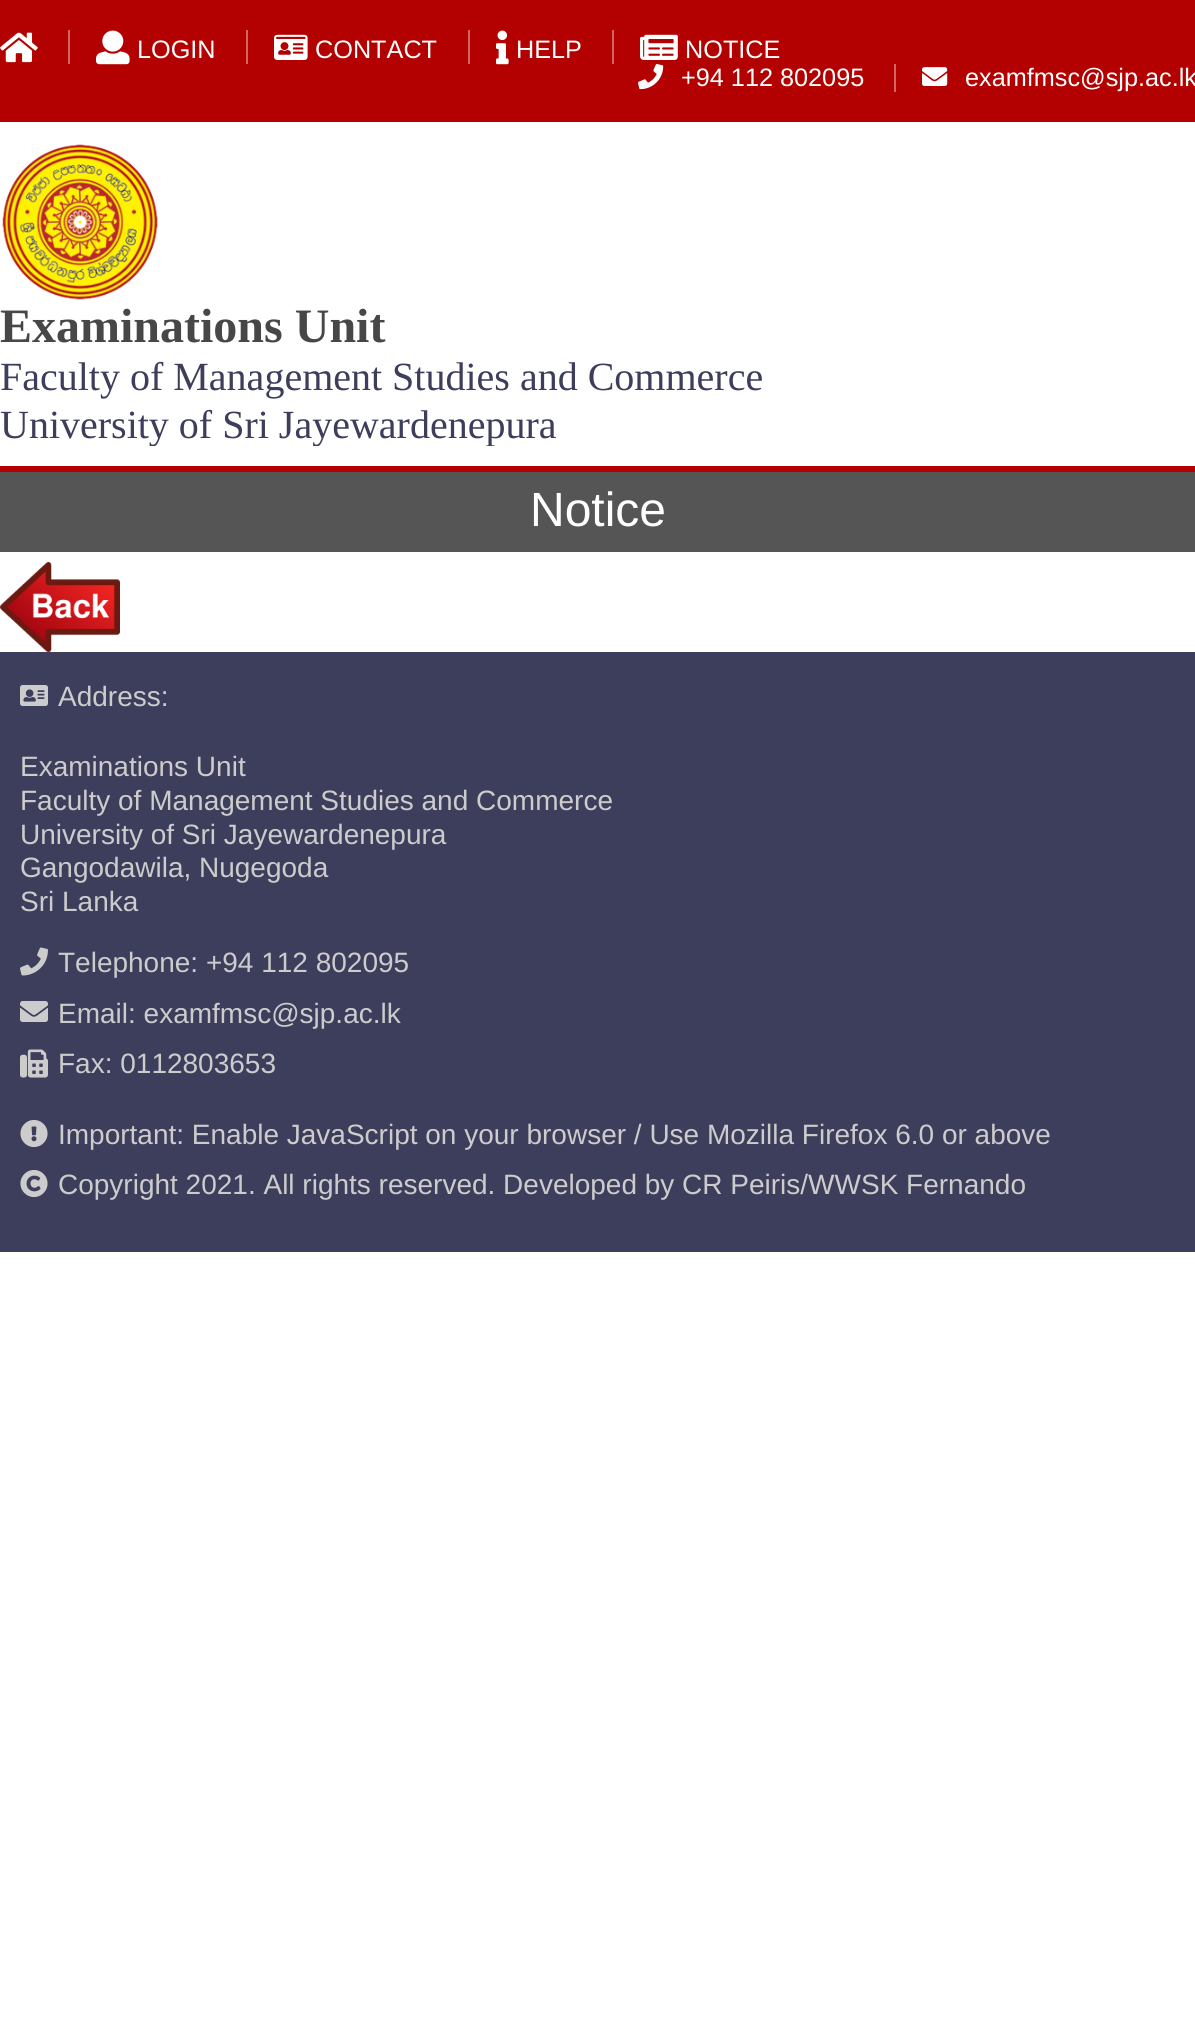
#include <cairo.h>
#include <math.h>
#include <stddef.h>


static void rgb(cairo_t *cr, int r, int g, int b)
{
	cairo_set_source_rgb(cr, r / 255.0, g / 255.0, b / 255.0);
}

static void face(cairo_t *cr, const char *family, double size, int italic, int bold)
{
	cairo_select_font_face(cr, family, italic ? CAIRO_FONT_SLANT_ITALIC : CAIRO_FONT_SLANT_NORMAL,
		bold ? CAIRO_FONT_WEIGHT_BOLD : CAIRO_FONT_WEIGHT_NORMAL);
	cairo_set_font_size(cr, size);
}

static void label(cairo_t *cr, double x, double y, const char *s)
{
	cairo_move_to(cr, x, y);
	cairo_show_text(cr, s);
}

static void rect(cairo_t *cr, double x, double y, double w, double h)
{
	cairo_rectangle(cr, x, y, w, h);
	cairo_fill(cr);
}

static void image(cairo_t *cr, const char *path, double x, double y, double w, double h)
{
	cairo_surface_t *image = cairo_image_surface_create_from_png(path);
	cairo_save(cr);
	cairo_set_source_surface(cr, image, x, y);
	cairo_rectangle(cr, x, y, w, h);
	cairo_fill(cr);
	cairo_restore(cr);
	cairo_surface_destroy(image);
}

static void draw(cairo_t *cr) {
	rgb(cr, 255, 255, 255);
	cairo_paint(cr);
	rgb(cr, 179, 0, 0);
	rect(cr, 0, 0, 1195, 122);
	rgb(cr, 209, 102, 102);
	rect(cr, 68, 30, 2, 34);
	image(cr, "image0.png", 0, 32, 38, 31);
	rect(cr, 246, 30, 2, 34);
	image(cr, "image1.png", 96, 30, 34, 35);
	face(cr, "Liberation Sans", 25.25, 0, 0);
	rgb(cr, 255, 255, 255);
	label(cr, 137, 58, "LOGIN");
	rgb(cr, 209, 102, 102);
	rect(cr, 468, 30, 2, 34);
	image(cr, "image2.png", 274, 34, 34, 26);
	rgb(cr, 255, 255, 255);
	label(cr, 315, 58, "CONTACT");
	rgb(cr, 209, 102, 102);
	rect(cr, 612, 30, 2, 34);
	image(cr, "image3.png", 496, 30, 13, 35);
	rgb(cr, 255, 255, 255);
	label(cr, 516, 58, "HELP");
	image(cr, "image4.png", 640, 34, 38, 26);
	label(cr, 685, 58, "NOTICE");
	rgb(cr, 209, 102, 102);
	rect(cr, 894, 64, 2, 28);
	image(cr, "image5.png", 638, 64, 26, 26);
	rgb(cr, 255, 255, 255);
	label(cr, 681, 86, "+94 112 802095");
	image(cr, "image6.png", 922, 67, 26, 19);
	label(cr, 965, 86, "examfmsc@sjp.ac.lk");
	image(cr, "image7.png", 2, 144, 156, 156);
	face(cr, "Liberation Serif", 48, 0, 1);
	rgb(cr, 71, 71, 71);
	label(cr, 0, 342, "Examinations Unit");
	face(cr, "Liberation Serif", 40, 0, 0);
	rgb(cr, 61, 61, 92);
	label(cr, 0, 390, "Faculty of Management Studies and Commerce");
	cairo_save(cr);
	cairo_rectangle(cr, 0, 302, 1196, 144);
	cairo_clip(cr);
	label(cr, 0, 438, "University of Sri Jayewardenepura");
	cairo_restore(cr);
	rgb(cr, 179, 0, 0);
	rect(cr, 0, 466, 1195, 6);
	rgb(cr, 85, 85, 85);
	rect(cr, 0, 472, 1195, 80);
	face(cr, "Liberation Sans", 48, 0, 0);
	rgb(cr, 255, 255, 255);
	label(cr, 530, 526, "Notice");
	image(cr, "image8.png", 0, 562, 120, 90);
	rgb(cr, 61, 61, 92);
	rect(cr, 0, 652, 1195, 600);
	image(cr, "image9.png", 20, 685, 28, 21);
	face(cr, "Liberation Sans", 28, 0, 0);
	rgb(cr, 204, 204, 204);
	label(cr, 58, 706, "Address:");
	label(cr, 20, 776, "Examinations Unit");
	label(cr, 20, 810, "Faculty of Management Studies and Commerce");
	label(cr, 20, 844, "University of Sri Jayewardenepura");
	label(cr, 20, 877, "Gangodawila, Nugegoda");
	label(cr, 20, 911, "Sri Lanka");
	image(cr, "image10.png", 20, 947, 28, 29);
	label(cr, 58, 972, "Telephone: +94 112 802095");
	image(cr, "image11.png", 20, 1001, 28, 21);
	label(cr, 58, 1023, "Email: examfmsc@sjp.ac.lk");
	image(cr, "image12.png", 20, 1049, 28, 29);
	label(cr, 58, 1073, "Fax: 0112803653");
	image(cr, "image13.png", 20, 1119, 28, 29);
	label(cr, 58, 1144, "Important: Enable JavaScript on your browser / Use Mozilla Firefox 6.0 or above");
	image(cr, "image14.png", 20, 1169, 28, 29);
	label(cr, 58, 1194, "Copyright 2021. All rights reserved. Developed by CR Peiris/WWSK Fernando");
}

int main(void) {
	cairo_surface_t *surface = cairo_image_surface_create(CAIRO_FORMAT_RGB24, 1195, 2026);
	cairo_t *cr = cairo_create(surface);
	cairo_font_options_t *options = cairo_font_options_create();
	cairo_font_options_set_hint_metrics(options, CAIRO_HINT_METRICS_OFF);
	cairo_font_options_set_hint_style(options, CAIRO_HINT_STYLE_NONE);
	cairo_set_font_options(cr, options);
	cairo_set_miter_limit(cr, 4);
	draw(cr);
	cairo_surface_write_to_png(surface, "render.png");
	cairo_font_options_destroy(options);
	cairo_destroy(cr);
	cairo_surface_destroy(surface);
	return 0;
}
